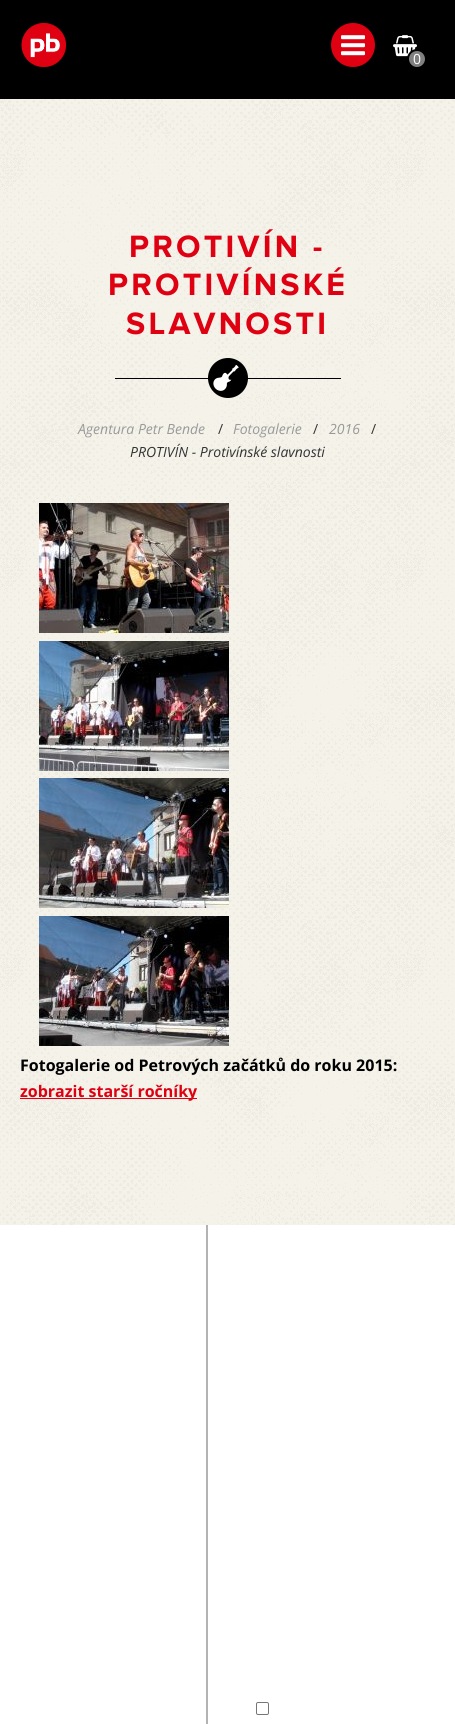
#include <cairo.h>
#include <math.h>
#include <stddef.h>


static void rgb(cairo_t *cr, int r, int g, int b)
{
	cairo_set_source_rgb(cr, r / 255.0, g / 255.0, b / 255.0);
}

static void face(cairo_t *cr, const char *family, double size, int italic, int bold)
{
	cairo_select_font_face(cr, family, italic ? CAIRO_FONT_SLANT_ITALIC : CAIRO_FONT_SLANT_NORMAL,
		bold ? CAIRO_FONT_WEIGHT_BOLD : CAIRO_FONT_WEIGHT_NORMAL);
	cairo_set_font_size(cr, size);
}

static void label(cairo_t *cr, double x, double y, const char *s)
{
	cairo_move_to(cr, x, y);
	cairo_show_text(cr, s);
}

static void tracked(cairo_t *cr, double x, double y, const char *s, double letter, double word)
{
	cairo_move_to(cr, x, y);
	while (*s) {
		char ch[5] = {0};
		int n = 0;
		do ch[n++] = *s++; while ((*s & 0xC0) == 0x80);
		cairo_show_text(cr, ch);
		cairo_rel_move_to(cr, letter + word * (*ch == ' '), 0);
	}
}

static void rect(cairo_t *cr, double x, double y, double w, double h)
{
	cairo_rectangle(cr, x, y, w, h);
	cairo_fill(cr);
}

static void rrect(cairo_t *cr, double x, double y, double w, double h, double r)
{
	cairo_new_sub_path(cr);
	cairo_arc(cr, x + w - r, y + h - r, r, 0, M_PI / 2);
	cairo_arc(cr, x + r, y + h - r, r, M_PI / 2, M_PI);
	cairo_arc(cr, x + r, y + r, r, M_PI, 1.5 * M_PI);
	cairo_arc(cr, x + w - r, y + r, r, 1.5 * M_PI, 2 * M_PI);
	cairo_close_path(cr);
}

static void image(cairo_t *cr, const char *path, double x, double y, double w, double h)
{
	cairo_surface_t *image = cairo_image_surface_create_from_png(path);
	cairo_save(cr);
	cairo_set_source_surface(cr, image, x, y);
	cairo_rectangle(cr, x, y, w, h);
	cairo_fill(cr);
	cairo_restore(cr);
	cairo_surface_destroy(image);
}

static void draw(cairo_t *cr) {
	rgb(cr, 255, 255, 255);
	cairo_paint(cr);
	rgb(cr, 0, 0, 0);
	rect(cr, 0, 0, 455, 99);
	image(cr, "image0.png", 21, 23, 45, 44);
	rgb(cr, 223, 0, 18);
	cairo_arc(cr, 353, 45, 22, 0, 2 * M_PI);
	cairo_fill(cr);
	image(cr, "image1.png", 341, 35, 24, 21);
	image(cr, "image2.png", 393, 35, 24, 22);
	rgb(cr, 128, 128, 128);
	cairo_arc(cr, 417, 59, 9, 0, 2 * M_PI);
	cairo_fill_preserve(cr);
	rgb(cr, 0, 0, 0);
	cairo_stroke(cr);
	face(cr, "Open Sans", 14, 0, 0);
	rgb(cr, 255, 255, 255);
	label(cr, 413, 64, "0");
	image(cr, "image3.png", 0, 99, 455, 1126);
	face(cr, "Proxima Nova", 32, 0, 1);
	rgb(cr, 223, 0, 18);
	tracked(cr, 129, 257, "PROTIVÍN -", 3.25, 0);
	tracked(cr, 108, 295, "PROTIVÍNSKÉ", 3.25, 0);
	tracked(cr, 126, 334, "SLAVNOSTI", 3.25, 0);
	rgb(cr, 0, 0, 0);
	rect(cr, 115, 378, 226, 1);
	cairo_new_path(cr);
	cairo_arc(cr, 228, 378, 20, 0, 2 * M_PI);
	cairo_fill(cr);
	image(cr, "image4.png", 213, 364, 26, 27);
	face(cr, "Open Sans", 14, 1, 0);
	rgb(cr, 153, 153, 153);
	label(cr, 78, 434, "Agentura Petr Bende");
	face(cr, "Open Sans", 14, 0, 0);
	rgb(cr, 51, 51, 51);
	label(cr, 218, 434, "/");
	face(cr, "Open Sans", 14, 1, 0);
	rgb(cr, 153, 153, 153);
	label(cr, 233, 434, "Fotogalerie");
	face(cr, "Open Sans", 14, 0, 0);
	rgb(cr, 51, 51, 51);
	label(cr, 313, 434, "/");
	face(cr, "Open Sans", 14, 1, 0);
	rgb(cr, 153, 153, 153);
	label(cr, 329, 434, "2016");
	face(cr, "Open Sans", 14, 0, 0);
	rgb(cr, 51, 51, 51);
	label(cr, 371, 434, "/");
	face(cr, "Open Sans", 14, 1, 0);
	label(cr, 130, 457, "PROTIVÍN - Protivínské slavnosti");
	image(cr, "image5.png", 39, 503, 190, 130);
	image(cr, "image6.png", 39, 641, 190, 130);
	image(cr, "image7.png", 39, 778, 190, 130);
	image(cr, "image8.png", 39, 916, 190, 130);
	face(cr, "Open Sans", 16, 0, 1);
	rgb(cr, 0, 0, 0);
	label(cr, 20, 1071, "Fotogalerie od Petrových začátků do roku 2015:");
	rgb(cr, 223, 0, 18);
	rect(cr, 20, 1098, 177, 1);
	label(cr, 20, 1097, "zobrazit starší ročníky");
	rgb(cr, 179, 179, 179);
	rect(cr, 206, 1225, 2, 499);
	rrect(cr, 256.5, 1702.5, 12, 12, 1.5);
	rgb(cr, 118, 118, 118);
	cairo_set_line_width(cr, 1);
	cairo_stroke(cr);
}

int main(void) {
	cairo_surface_t *surface = cairo_image_surface_create(CAIRO_FORMAT_RGB24, 455, 1724);
	cairo_t *cr = cairo_create(surface);
	cairo_font_options_t *options = cairo_font_options_create();
	cairo_font_options_set_hint_metrics(options, CAIRO_HINT_METRICS_OFF);
	cairo_font_options_set_hint_style(options, CAIRO_HINT_STYLE_NONE);
	cairo_set_font_options(cr, options);
	cairo_set_miter_limit(cr, 4);
	draw(cr);
	cairo_surface_write_to_png(surface, "render.png");
	cairo_font_options_destroy(options);
	cairo_destroy(cr);
	cairo_surface_destroy(surface);
	return 0;
}
